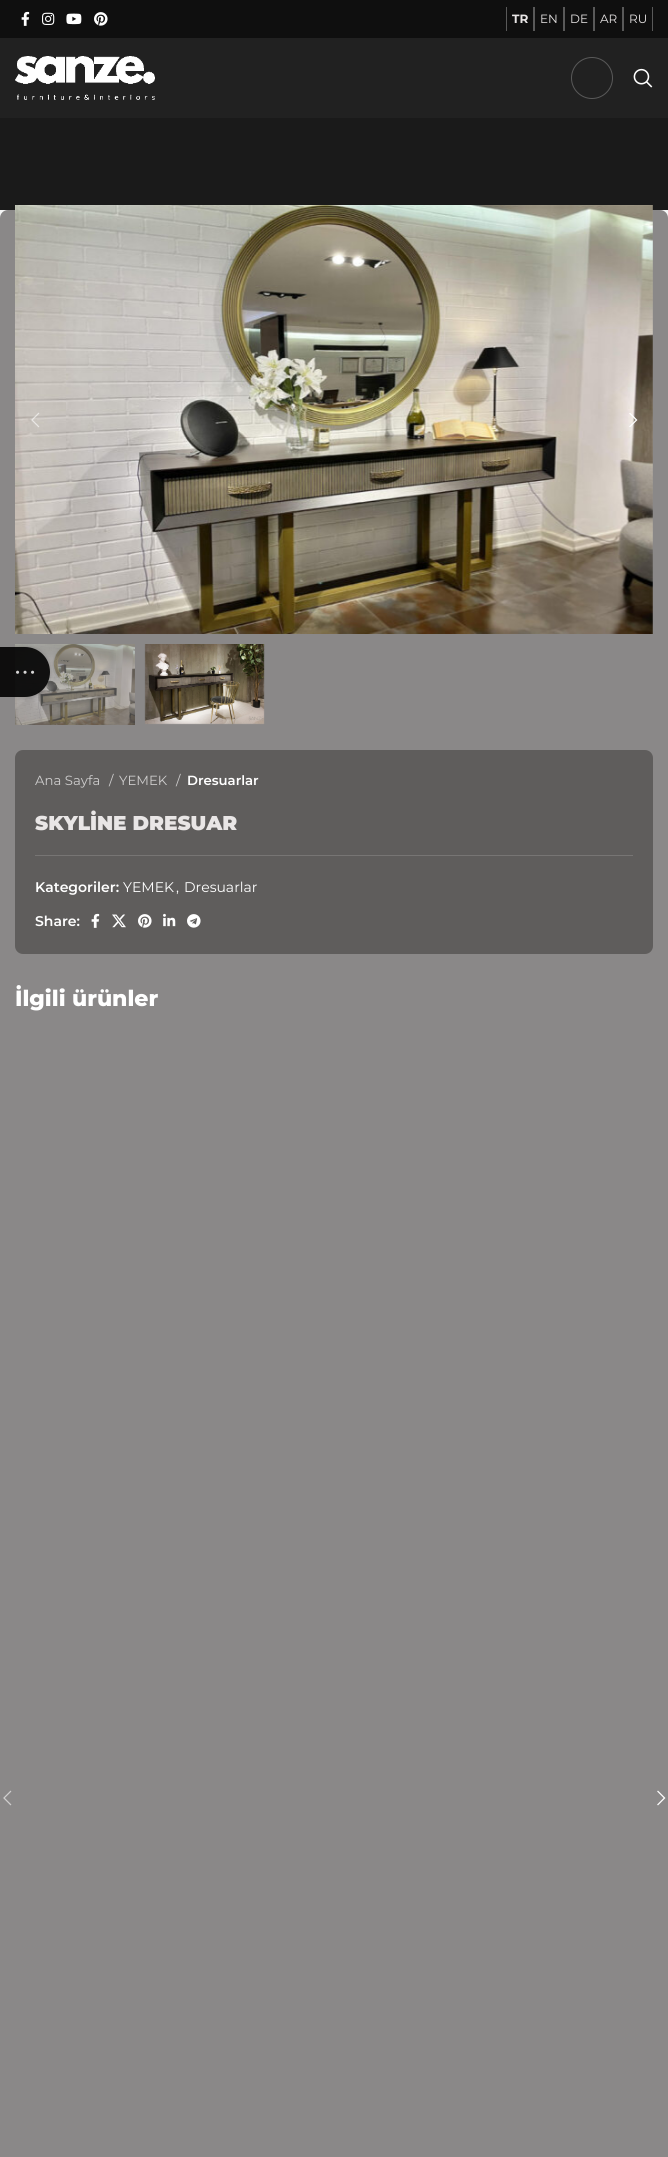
#include <cairo.h>
#include <math.h>
#include <stddef.h>


static void rgb(cairo_t *cr, int r, int g, int b)
{
	cairo_set_source_rgb(cr, r / 255.0, g / 255.0, b / 255.0);
}

static void face(cairo_t *cr, const char *family, double size, int italic, int bold)
{
	cairo_select_font_face(cr, family, italic ? CAIRO_FONT_SLANT_ITALIC : CAIRO_FONT_SLANT_NORMAL,
		bold ? CAIRO_FONT_WEIGHT_BOLD : CAIRO_FONT_WEIGHT_NORMAL);
	cairo_set_font_size(cr, size);
}

static void label(cairo_t *cr, double x, double y, const char *s)
{
	cairo_move_to(cr, x, y);
	cairo_show_text(cr, s);
}

static void rect(cairo_t *cr, double x, double y, double w, double h)
{
	cairo_rectangle(cr, x, y, w, h);
	cairo_fill(cr);
}

static void rrect(cairo_t *cr, double x, double y, double w, double h, double r)
{
	cairo_new_sub_path(cr);
	cairo_arc(cr, x + w - r, y + h - r, r, 0, M_PI / 2);
	cairo_arc(cr, x + r, y + h - r, r, M_PI / 2, M_PI);
	cairo_arc(cr, x + r, y + r, r, M_PI, 1.5 * M_PI);
	cairo_arc(cr, x + w - r, y + r, r, 1.5 * M_PI, 2 * M_PI);
	cairo_close_path(cr);
}

static void soft_shadow(cairo_t *cr, double x, double y, double w, double h, double r, double blur, double alpha)
{
	cairo_push_group_with_content(cr, CAIRO_CONTENT_ALPHA);
	cairo_set_operator(cr, CAIRO_OPERATOR_SOURCE);
	for (int i = 15; i >= -15 && fmin(w, h) + blur * i / 3 > 0; i -= 2) {
		double e = blur * i / 6;
		cairo_set_source_rgba(cr, 0, 0, 0, alpha * erfc((i - 1) / 8.5) / 2);
		rrect(cr, x - e, y - e, w + 2 * e, h + 2 * e, fmax(0, fmin(r + e + blur * .6, fmin(w, h) / 2 + e)));
		cairo_fill(cr);
	}
	cairo_pattern_t *soft = cairo_pop_group(cr);
	cairo_mask(cr, soft);
	cairo_pattern_destroy(soft);
}

static void image(cairo_t *cr, const char *path, double x, double y, double w, double h)
{
	cairo_surface_t *image = cairo_image_surface_create_from_png(path);
	cairo_save(cr);
	cairo_set_source_surface(cr, image, x, y);
	cairo_rectangle(cr, x, y, w, h);
	cairo_fill(cr);
	cairo_restore(cr);
	cairo_surface_destroy(image);
}

static void draw(cairo_t *cr) {
	rgb(cr, 26, 26, 26);
	cairo_paint(cr);
	rgb(cr, 15, 15, 15);
	rect(cr, 0, 0, 668, 38);
	image(cr, "image0.png", 21, 11, 9, 15);
	image(cr, "image1.png", 42, 12, 13, 13);
	image(cr, "image2.png", 66, 13, 16, 12);
	image(cr, "image3.png", 94, 12, 14, 14);
	rgb(cr, 89, 89, 89);
	rect(cr, 506, 7, 1, 24);
	face(cr, "Montserrat", 12, 0, 1);
	rgb(cr, 233, 230, 230);
	label(cr, 512, 23, "TR");
	rgb(cr, 89, 89, 89);
	rect(cr, 533, 7, 2, 24);
	face(cr, "Montserrat", 12, 0, 0);
	rgb(cr, 233, 230, 230);
	label(cr, 540, 23, "EN");
	rgb(cr, 89, 89, 89);
	rect(cr, 563, 7, 2, 24);
	rgb(cr, 233, 230, 230);
	label(cr, 570, 23, "DE");
	rgb(cr, 89, 89, 89);
	rect(cr, 593, 7, 2, 24);
	rgb(cr, 233, 230, 230);
	label(cr, 600, 23, "AR");
	rgb(cr, 89, 89, 89);
	rect(cr, 652, 7, 1, 24);
	rect(cr, 622, 7, 2, 24);
	rgb(cr, 233, 230, 230);
	label(cr, 629, 23, "RU");
	rgb(cr, 33, 33, 33);
	rect(cr, 0, 38, 668, 80);
	image(cr, "image4.png", 15, 56, 140, 44);
	cairo_arc(cr, 592, 78, 20.5, 0, 2 * M_PI);
	rgb(cr, 89, 89, 89);
	cairo_set_line_width(cr, 1);
	cairo_stroke(cr);
	image(cr, "image5.png", 633, 68, 20, 20);
	rgb(cr, 245, 245, 245);
	rect(cr, 0, 210, 668, 8);
	rgb(cr, 138, 136, 136);
	rrect(cr, 0, 210, 668, 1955, 8);
	cairo_fill(cr);
	image(cr, "image6.png", 15, 205, 638, 429);
	image(cr, "image7.png", 31, 412, 9, 16);
	image(cr, "image8.png", 629, 413, 9, 14);
	image(cr, "image9.png", 15, 644, 120, 81);
	image(cr, "image10.png", 144, 644, 121, 81);
	rgb(cr, 95, 93, 92);
	rrect(cr, 15, 750, 638, 204, 8);
	cairo_fill(cr);
	face(cr, "Montserrat", 13.25, 0, 0);
	rgb(cr, 207, 206, 206);
	label(cr, 35, 785, "Ana Sayfa");
	label(cr, 109, 785, "/");
	label(cr, 119, 785, "YEMEK");
	label(cr, 176, 785, "/");
	face(cr, "Montserrat SemiBold", 13.25, 0, 0);
	rgb(cr, 255, 255, 255);
	label(cr, 187, 785, "Dresuarlar");
	face(cr, "Montserrat Black", 20, 0, 0);
	rgb(cr, 233, 230, 230);
	label(cr, 35, 830, "SKYLİNE DRESUAR");
	rgb(cr, 119, 117, 116);
	rect(cr, 35, 855, 598, 1);
	face(cr, "Montserrat SemiBold", 14, 0, 0);
	rgb(cr, 255, 255, 255);
	label(cr, 35, 892, "Kategoriler:");
	face(cr, "Montserrat", 14, 0, 0);
	label(cr, 123, 892, "YEMEK");
	label(cr, 184, 892, "Dresuarlar");
	label(cr, 176, 892, ",");
	face(cr, "Montserrat SemiBold", 14, 0, 0);
	label(cr, 35, 926, "Share:");
	image(cr, "image11.png", 91, 913, 9, 15);
	image(cr, "image12.png", 112, 914, 14, 14);
	image(cr, "image13.png", 138, 914, 14, 14);
	image(cr, "image14.png", 163, 913, 13, 14);
	image(cr, "image15.png", 187, 914, 14, 14);
	face(cr, "Montserrat ExtraBold", 22, 0, 0);
	label(cr, 15, 1006, "İlgili ürünler");
	image(cr, "image16.png", 3, 1790, 9, 16);
	image(cr, "image17.png", 657, 1790, 9, 16);
	cairo_save(cr);
	cairo_set_fill_rule(cr, CAIRO_FILL_RULE_EVEN_ODD);
	cairo_new_path(cr);
	cairo_move_to(cr, 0, 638);
	cairo_line_to(cr, 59, 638);
	cairo_line_to(cr, 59, 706);
	cairo_line_to(cr, 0, 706);
	cairo_close_path(cr);
	cairo_move_to(cr, 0, 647);
	cairo_line_to(cr, 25, 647);
	cairo_curve_to(cr, 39, 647, 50, 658, 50, 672);
	cairo_curve_to(cr, 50, 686, 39, 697, 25, 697);
	cairo_line_to(cr, 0, 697);
	cairo_close_path(cr);
	cairo_clip(cr);
	rgb(cr, 0, 0, 0);
	soft_shadow(cr, 0, 647, 50, 50, 25, 2.5, 0.17);
	cairo_restore(cr);
	cairo_set_source_rgba(cr, 0, 0, 0, 0.9);
	cairo_new_path(cr);
	cairo_move_to(cr, 0, 647);
	cairo_line_to(cr, 25, 647);
	cairo_curve_to(cr, 39, 647, 50, 658, 50, 672);
	cairo_curve_to(cr, 50, 686, 39, 697, 25, 697);
	cairo_line_to(cr, 0, 697);
	cairo_close_path(cr);
	cairo_fill(cr);
	image(cr, "image18.png", 16, 670, 19, 4);
}

int main(void) {
	cairo_surface_t *surface = cairo_image_surface_create(CAIRO_FORMAT_RGB24, 668, 2157);
	cairo_t *cr = cairo_create(surface);
	cairo_font_options_t *options = cairo_font_options_create();
	cairo_font_options_set_hint_metrics(options, CAIRO_HINT_METRICS_OFF);
	cairo_font_options_set_hint_style(options, CAIRO_HINT_STYLE_NONE);
	cairo_set_font_options(cr, options);
	cairo_set_miter_limit(cr, 4);
	draw(cr);
	cairo_surface_write_to_png(surface, "render.png");
	cairo_font_options_destroy(options);
	cairo_destroy(cr);
	cairo_surface_destroy(surface);
	return 0;
}
